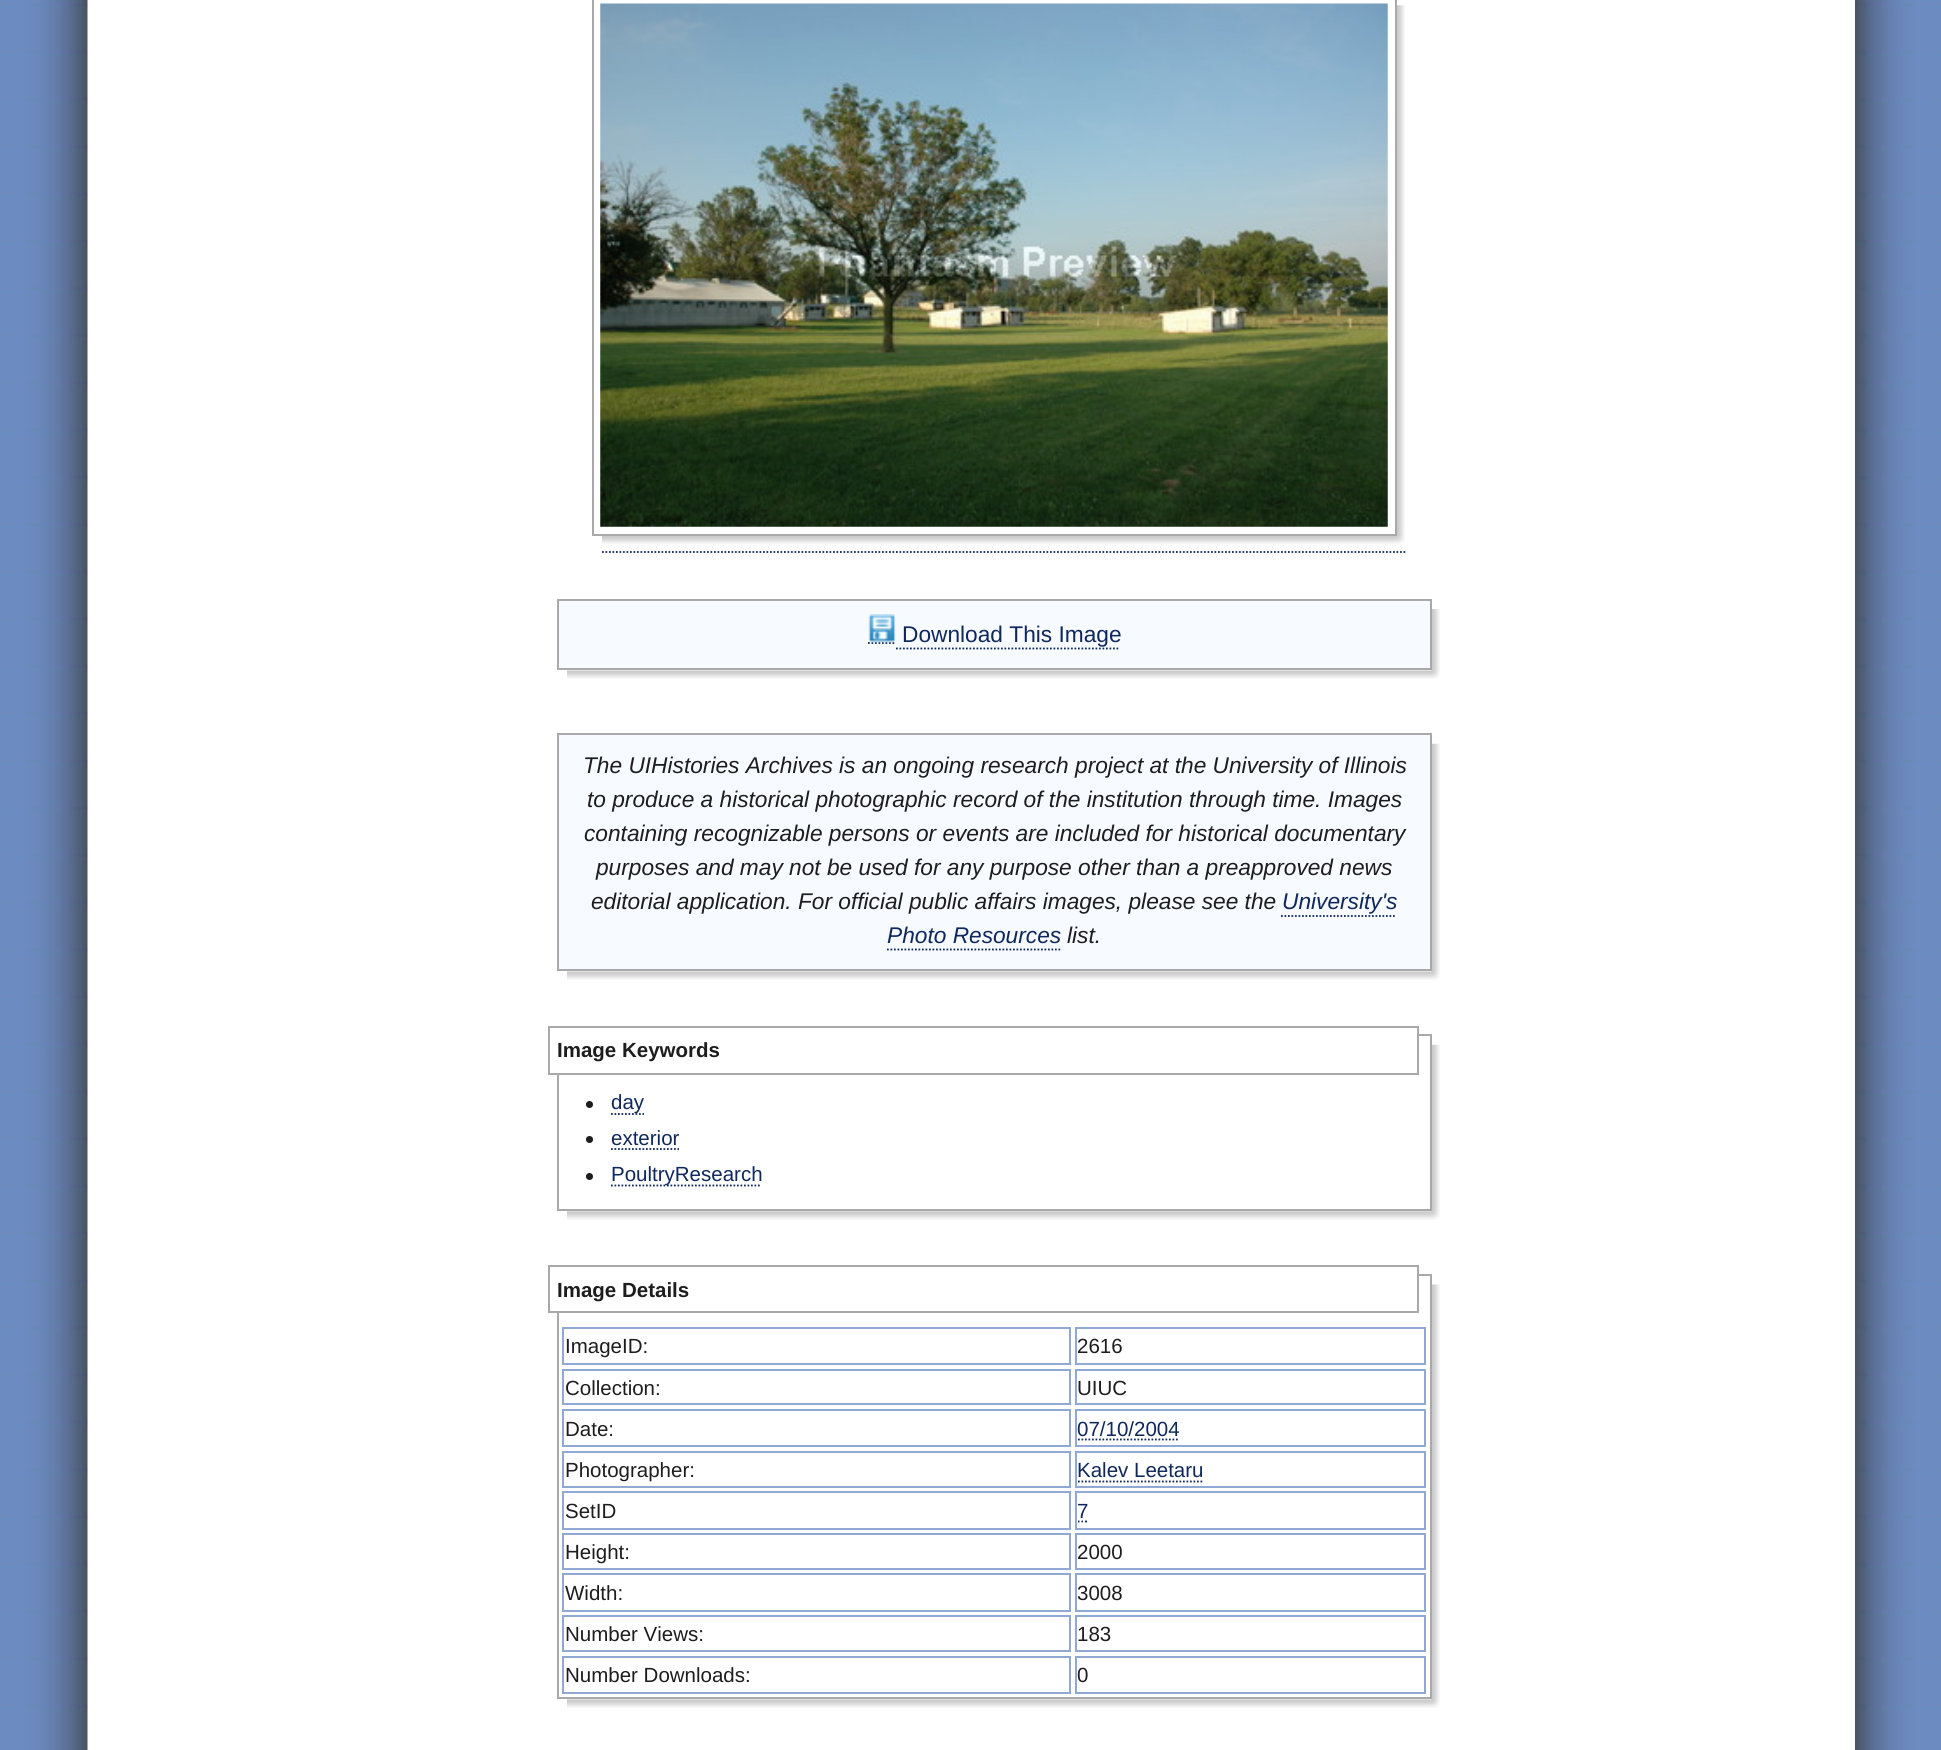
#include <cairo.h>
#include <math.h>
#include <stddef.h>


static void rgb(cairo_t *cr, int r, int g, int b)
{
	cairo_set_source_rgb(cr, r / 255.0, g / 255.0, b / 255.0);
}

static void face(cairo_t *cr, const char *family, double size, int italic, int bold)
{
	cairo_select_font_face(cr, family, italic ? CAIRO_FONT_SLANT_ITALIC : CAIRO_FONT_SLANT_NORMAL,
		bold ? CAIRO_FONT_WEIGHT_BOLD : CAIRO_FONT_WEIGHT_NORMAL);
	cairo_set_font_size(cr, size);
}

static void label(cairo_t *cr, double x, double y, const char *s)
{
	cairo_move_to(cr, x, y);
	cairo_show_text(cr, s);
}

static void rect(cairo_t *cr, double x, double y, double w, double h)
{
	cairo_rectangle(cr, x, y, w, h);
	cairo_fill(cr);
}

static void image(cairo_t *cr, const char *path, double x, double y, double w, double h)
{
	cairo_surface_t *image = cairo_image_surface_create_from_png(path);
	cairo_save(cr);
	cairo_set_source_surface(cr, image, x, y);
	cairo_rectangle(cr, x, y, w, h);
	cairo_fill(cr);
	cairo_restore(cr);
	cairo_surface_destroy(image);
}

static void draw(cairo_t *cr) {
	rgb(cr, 255, 255, 255);
	cairo_paint(cr);
	image(cr, "image0.png", 0, 0, 1941, 1750);
	rgb(cr, 255, 255, 255);
	rect(cr, 88, 0, 1767, 1750);
	image(cr, "image1.png", 602, 5, 803, 539);
	cairo_rectangle(cr, 593, -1, 803, 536);
	rgb(cr, 169, 169, 169);
	cairo_stroke(cr);
	image(cr, "image2.png", 600, 3, 788, 524);
	cairo_new_path(cr);
	cairo_move_to(cr, 602, 552);
	cairo_line_to(cr, 1407, 552);
	rgb(cr, 15, 40, 92);
	cairo_set_line_width(cr, 1.8);
	cairo_set_dash(cr, (double[]){1.75, 1.75}, 2, 0);
	cairo_stroke(cr);
	image(cr, "image3.png", 567, 609, 873, 70);
	rgb(cr, 247, 250, 255);
	cairo_rectangle(cr, 558, 600, 873, 69);
	cairo_fill_preserve(cr);
	rgb(cr, 169, 169, 169);
	cairo_set_line_width(cr, 2);
	cairo_set_dash(cr, NULL, 0, 0);
	cairo_stroke(cr);
	cairo_new_path(cr);
	cairo_move_to(cr, 868, 643);
	cairo_line_to(cr, 896, 643);
	rgb(cr, 15, 40, 92);
	cairo_set_line_width(cr, 1.8);
	cairo_set_dash(cr, (double[]){1.75, 1.75}, 2, 0);
	cairo_stroke(cr);
	image(cr, "image4.png", 868, 614, 28, 29);
	face(cr, "Liberation Sans", 22.7, 0, 0);
	label(cr, 902, 642, "Download This Image");
	cairo_new_path(cr);
	cairo_move_to(cr, 896, 648.5);
	cairo_line_to(cr, 1120, 648.5);
	cairo_stroke(cr);
	image(cr, "image5.png", 567, 743, 873, 237);
	rgb(cr, 247, 250, 255);
	cairo_rectangle(cr, 558, 734, 873, 236);
	cairo_fill_preserve(cr);
	rgb(cr, 169, 169, 169);
	cairo_set_line_width(cr, 2);
	cairo_set_dash(cr, NULL, 0, 0);
	cairo_stroke(cr);
	face(cr, "Liberation Sans", 22.7, 1, 0);
	rgb(cr, 29, 29, 29);
	label(cr, 583, 773, "The UIHistories Archives is an ongoing research project at the University of Illinois");
	label(cr, 587, 807, "to produce a historical photographic record of the institution through time. Images");
	label(cr, 584, 841, "containing recognizable persons or events are included for historical documentary");
	label(cr, 596, 875, "purposes and may not be used for any purpose other than a preapproved news");
	label(cr, 591, 909, "editorial application. For official public affairs images, please see the");
	rgb(cr, 15, 40, 92);
	label(cr, 1282, 909, "University's");
	cairo_new_path(cr);
	cairo_move_to(cr, 1281, 916);
	cairo_line_to(cr, 1396.5, 916);
	cairo_set_line_width(cr, 1.8);
	cairo_set_dash(cr, (double[]){1.75, 1.75}, 2, 0);
	cairo_stroke(cr);
	label(cr, 887, 943, "Photo Resources");
	cairo_new_path(cr);
	cairo_move_to(cr, 887, 949.5);
	cairo_line_to(cr, 1060.5, 949.5);
	cairo_stroke(cr);
	rgb(cr, 29, 29, 29);
	label(cr, 1067, 943, "list.");
	image(cr, "image6.png", 567, 1044, 873, 176);
	cairo_rectangle(cr, 558, 1035, 873, 175);
	rgb(cr, 169, 169, 169);
	cairo_set_line_width(cr, 2);
	cairo_set_dash(cr, NULL, 0, 0);
	cairo_stroke(cr);
	rgb(cr, 255, 255, 255);
	rect(cr, 557, 1034, 860, 39);
	cairo_rectangle(cr, 549, 1027, 869, 47);
	rgb(cr, 169, 169, 169);
	cairo_stroke(cr);
	face(cr, "Liberation Sans", 20.5, 0, 1);
	rgb(cr, 29, 29, 29);
	label(cr, 557, 1057, "Image Keywords");
	cairo_new_path(cr);
	cairo_arc(cr, 589.5, 1104.5, 3.5, 0, 2 * M_PI);
	cairo_fill(cr);
	cairo_new_path(cr);
	cairo_move_to(cr, 611, 1114);
	cairo_line_to(cr, 644, 1114);
	rgb(cr, 15, 40, 92);
	cairo_set_line_width(cr, 1.8);
	cairo_set_dash(cr, (double[]){1.75, 1.75}, 2, 0);
	cairo_stroke(cr);
	face(cr, "Liberation Sans", 20.5, 0, 0);
	label(cr, 611, 1109, "day");
	rgb(cr, 29, 29, 29);
	cairo_new_path(cr);
	cairo_arc(cr, 589.5, 1139.5, 3.5, 0, 2 * M_PI);
	cairo_fill(cr);
	rgb(cr, 15, 40, 92);
	label(cr, 611, 1145, "exterior");
	cairo_new_path(cr);
	cairo_move_to(cr, 611, 1149);
	cairo_line_to(cr, 679, 1149);
	cairo_stroke(cr);
	rgb(cr, 29, 29, 29);
	cairo_arc(cr, 589.5, 1176.5, 3.5, 0, 2 * M_PI);
	cairo_fill(cr);
	cairo_new_path(cr);
	cairo_move_to(cr, 611, 1185.5);
	cairo_line_to(cr, 761, 1185.5);
	rgb(cr, 15, 40, 92);
	cairo_stroke(cr);
	label(cr, 611, 1181, "PoultryResearch");
	image(cr, "image7.png", 567, 1284, 873, 424);
	cairo_rectangle(cr, 558, 1275, 873, 423);
	rgb(cr, 169, 169, 169);
	cairo_set_line_width(cr, 2);
	cairo_set_dash(cr, NULL, 0, 0);
	cairo_stroke(cr);
	rgb(cr, 255, 255, 255);
	rect(cr, 557, 1274, 860, 37);
	cairo_rectangle(cr, 549, 1266, 869, 46);
	rgb(cr, 169, 169, 169);
	cairo_stroke(cr);
	face(cr, "Liberation Sans", 20.5, 0, 1);
	rgb(cr, 29, 29, 29);
	label(cr, 557, 1297, "Image Details");
	cairo_rectangle(cr, 563, 1328, 507, 36);
	rgb(cr, 143, 168, 212);
	cairo_stroke(cr);
	face(cr, "Liberation Sans", 20.5, 0, 0);
	rgb(cr, 29, 29, 29);
	label(cr, 565, 1353, "ImageID:");
	cairo_rectangle(cr, 1076, 1328, 349, 36);
	rgb(cr, 143, 168, 212);
	cairo_stroke(cr);
	rgb(cr, 29, 29, 29);
	label(cr, 1077, 1353, "2616");
	cairo_rectangle(cr, 563, 1370, 507, 34);
	rgb(cr, 143, 168, 212);
	cairo_stroke(cr);
	rgb(cr, 29, 29, 29);
	label(cr, 565, 1395, "Collection:");
	cairo_rectangle(cr, 1076, 1370, 349, 34);
	rgb(cr, 143, 168, 212);
	cairo_stroke(cr);
	rgb(cr, 29, 29, 29);
	label(cr, 1077, 1395, "UIUC");
	cairo_rectangle(cr, 563, 1410, 507, 36);
	rgb(cr, 143, 168, 212);
	cairo_stroke(cr);
	rgb(cr, 29, 29, 29);
	label(cr, 565, 1436, "Date:");
	cairo_rectangle(cr, 1076, 1410, 349, 36);
	rgb(cr, 143, 168, 212);
	cairo_stroke(cr);
	rgb(cr, 15, 40, 92);
	label(cr, 1077, 1436, "07/10/2004");
	cairo_new_path(cr);
	cairo_move_to(cr, 1078, 1439.5);
	cairo_line_to(cr, 1179.5, 1439.5);
	cairo_set_line_width(cr, 1.8);
	cairo_set_dash(cr, (double[]){1.75, 1.75}, 2, 0);
	cairo_stroke(cr);
	cairo_rectangle(cr, 563, 1452, 507, 35);
	rgb(cr, 143, 168, 212);
	cairo_set_line_width(cr, 2);
	cairo_set_dash(cr, NULL, 0, 0);
	cairo_stroke(cr);
	rgb(cr, 29, 29, 29);
	label(cr, 565, 1477, "Photographer:");
	cairo_rectangle(cr, 1076, 1452, 349, 35);
	rgb(cr, 143, 168, 212);
	cairo_stroke(cr);
	rgb(cr, 15, 40, 92);
	label(cr, 1077, 1477, "Kalev Leetaru");
	cairo_new_path(cr);
	cairo_move_to(cr, 1078, 1481.5);
	cairo_line_to(cr, 1204, 1481.5);
	cairo_set_line_width(cr, 1.8);
	cairo_set_dash(cr, (double[]){1.75, 1.75}, 2, 0);
	cairo_stroke(cr);
	cairo_rectangle(cr, 563, 1492, 507, 37);
	rgb(cr, 143, 168, 212);
	cairo_set_line_width(cr, 2);
	cairo_set_dash(cr, NULL, 0, 0);
	cairo_stroke(cr);
	rgb(cr, 29, 29, 29);
	label(cr, 565, 1518, "SetID");
	cairo_rectangle(cr, 1076, 1492, 349, 37);
	rgb(cr, 143, 168, 212);
	cairo_stroke(cr);
	rgb(cr, 15, 40, 92);
	label(cr, 1077, 1518, "7");
	cairo_new_path(cr);
	cairo_move_to(cr, 1078, 1521.5);
	cairo_line_to(cr, 1079.5, 1521.5);
	cairo_move_to(cr, 1081.5, 1521.5);
	cairo_line_to(cr, 1083, 1521.5);
	cairo_move_to(cr, 1085, 1521.5);
	cairo_line_to(cr, 1087, 1521.5);
	cairo_set_line_width(cr, 1.8);
	cairo_stroke(cr);
	cairo_rectangle(cr, 563, 1534, 507, 35);
	rgb(cr, 143, 168, 212);
	cairo_set_line_width(cr, 2);
	cairo_stroke(cr);
	rgb(cr, 29, 29, 29);
	label(cr, 565, 1559, "Height:");
	cairo_rectangle(cr, 1076, 1534, 349, 35);
	rgb(cr, 143, 168, 212);
	cairo_stroke(cr);
	rgb(cr, 29, 29, 29);
	label(cr, 1077, 1559, "2000");
	cairo_rectangle(cr, 563, 1574, 507, 37);
	rgb(cr, 143, 168, 212);
	cairo_stroke(cr);
	rgb(cr, 29, 29, 29);
	label(cr, 565, 1600, "Width:");
	cairo_rectangle(cr, 1076, 1574, 349, 37);
	rgb(cr, 143, 168, 212);
	cairo_stroke(cr);
	rgb(cr, 29, 29, 29);
	label(cr, 1077, 1600, "3008");
	cairo_rectangle(cr, 563, 1616, 507, 35);
	rgb(cr, 143, 168, 212);
	cairo_stroke(cr);
	rgb(cr, 29, 29, 29);
	label(cr, 565, 1641, "Number Views:");
	cairo_rectangle(cr, 1076, 1616, 349, 35);
	rgb(cr, 143, 168, 212);
	cairo_stroke(cr);
	rgb(cr, 29, 29, 29);
	label(cr, 1077, 1641, "183");
	cairo_rectangle(cr, 563, 1657, 507, 36);
	rgb(cr, 143, 168, 212);
	cairo_stroke(cr);
	rgb(cr, 29, 29, 29);
	label(cr, 565, 1682, "Number Downloads:");
	cairo_rectangle(cr, 1076, 1657, 349, 36);
	rgb(cr, 143, 168, 212);
	cairo_stroke(cr);
	rgb(cr, 29, 29, 29);
	label(cr, 1077, 1682, "0");
}

int main(void) {
	cairo_surface_t *surface = cairo_image_surface_create(CAIRO_FORMAT_RGB24, 1941, 1750);
	cairo_t *cr = cairo_create(surface);
	cairo_font_options_t *options = cairo_font_options_create();
	cairo_font_options_set_hint_metrics(options, CAIRO_HINT_METRICS_OFF);
	cairo_font_options_set_hint_style(options, CAIRO_HINT_STYLE_NONE);
	cairo_set_font_options(cr, options);
	cairo_set_miter_limit(cr, 4);
	draw(cr);
	cairo_surface_write_to_png(surface, "render.png");
	cairo_font_options_destroy(options);
	cairo_destroy(cr);
	cairo_surface_destroy(surface);
	return 0;
}
